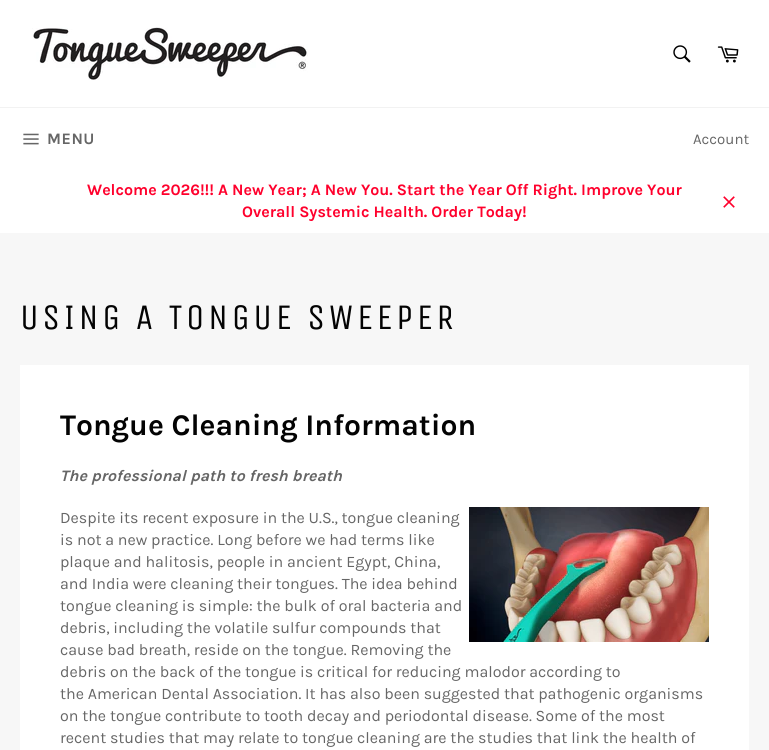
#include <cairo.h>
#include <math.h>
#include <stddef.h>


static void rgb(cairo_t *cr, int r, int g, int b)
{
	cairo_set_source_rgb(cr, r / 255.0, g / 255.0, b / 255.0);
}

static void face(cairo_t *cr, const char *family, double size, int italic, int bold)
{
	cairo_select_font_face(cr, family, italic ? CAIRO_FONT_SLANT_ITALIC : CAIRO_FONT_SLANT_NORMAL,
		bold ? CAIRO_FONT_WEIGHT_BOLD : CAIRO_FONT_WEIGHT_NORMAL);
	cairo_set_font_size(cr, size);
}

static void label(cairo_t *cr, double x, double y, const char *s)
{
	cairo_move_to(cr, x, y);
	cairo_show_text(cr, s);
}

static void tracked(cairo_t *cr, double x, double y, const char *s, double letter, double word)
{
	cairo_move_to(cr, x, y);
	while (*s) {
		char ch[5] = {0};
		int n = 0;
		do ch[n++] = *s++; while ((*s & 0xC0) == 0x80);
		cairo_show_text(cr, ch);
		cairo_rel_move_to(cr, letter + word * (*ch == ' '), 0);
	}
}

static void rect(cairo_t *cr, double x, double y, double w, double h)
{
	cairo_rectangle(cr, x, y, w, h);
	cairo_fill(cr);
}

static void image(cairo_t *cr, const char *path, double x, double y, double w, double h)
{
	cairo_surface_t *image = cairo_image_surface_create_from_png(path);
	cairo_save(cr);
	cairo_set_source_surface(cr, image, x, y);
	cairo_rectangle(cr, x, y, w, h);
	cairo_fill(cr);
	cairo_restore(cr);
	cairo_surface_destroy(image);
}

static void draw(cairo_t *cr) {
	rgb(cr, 247, 247, 247);
	cairo_paint(cr);
	rgb(cr, 255, 255, 255);
	rect(cr, 0, 0, 769, 233);
	image(cr, "image0.png", 32, 27, 276, 53);
	image(cr, "image1.png", 673, 45, 18, 18);
	image(cr, "image2.png", 717, 46, 22, 17);
	rgb(cr, 242, 242, 242);
	rect(cr, 0, 107, 769, 1);
	image(cr, "image3.png", 23, 133, 16, 12);
	face(cr, "Karla", 16, 0, 1);
	rgb(cr, 102, 102, 102);
	tracked(cr, 47, 144, "MENU", 0.5, 0);
	face(cr, "Karla", 15, 0, 0);
	label(cr, 693, 144, "Account");
	face(cr, "Karla", 16, 0, 1);
	rgb(cr, 255, 0, 44);
	label(cr, 87, 195, "Welcome 2026!!! A New Year; A New You. Start the Year Off Right. Improve Your");
	label(cr, 242, 217, "Overall Systemic Health. Order Today!");
	image(cr, "image4.png", 723, 196, 12, 12);
	face(cr, "Unica One", 36, 0, 0);
	rgb(cr, 3, 3, 3);
	tracked(cr, 20, 329, "USING A TONGUE SWEEPER", 3.6, 0);
	rgb(cr, 255, 255, 255);
	rect(cr, 20, 365, 729, 385);
	face(cr, "Karla", 30, 0, 1);
	rgb(cr, 3, 3, 3);
	label(cr, 60, 435, "Tongue Cleaning Information");
	face(cr, "Karla", 16, 1, 1);
	rgb(cr, 102, 102, 102);
	label(cr, 60, 481, "The professional path to fresh breath");
	face(cr, "Karla", 16, 0, 0);
	label(cr, 60, 523, "Despite its recent exposure in the U.S., tongue cleaning");
	image(cr, "image5.png", 469, 507, 240, 135);
	label(cr, 60, 545, "is not a new practice. Long before we had terms like");
	label(cr, 60, 567, "plaque and halitosis, people in ancient Egypt, China,");
	label(cr, 60, 589, "and India were cleaning their tongues. The idea behind");
	label(cr, 60, 611, "tongue cleaning is simple: the bulk of oral bacteria and");
	label(cr, 60, 633, "debris, including the volatile sulfur compounds that");
	label(cr, 60, 655, "cause bad breath, reside on the tongue. Removing the");
	label(cr, 60, 677, "debris on the back of the tongue is critical for reducing malodor according to");
	label(cr, 60, 699, "the American Dental Association. It has also been suggested that pathogenic organisms");
	label(cr, 60, 721, "on the tongue contribute to tooth decay and periodontal disease. Some of the most");
	label(cr, 60, 743, "recent studies that may relate to tongue cleaning are the studies that link the health of");
}

int main(void) {
	cairo_surface_t *surface = cairo_image_surface_create(CAIRO_FORMAT_RGB24, 769, 750);
	cairo_t *cr = cairo_create(surface);
	cairo_font_options_t *options = cairo_font_options_create();
	cairo_font_options_set_hint_metrics(options, CAIRO_HINT_METRICS_OFF);
	cairo_font_options_set_hint_style(options, CAIRO_HINT_STYLE_NONE);
	cairo_set_font_options(cr, options);
	cairo_set_miter_limit(cr, 4);
	draw(cr);
	cairo_surface_write_to_png(surface, "render.png");
	cairo_font_options_destroy(options);
	cairo_destroy(cr);
	cairo_surface_destroy(surface);
	return 0;
}
